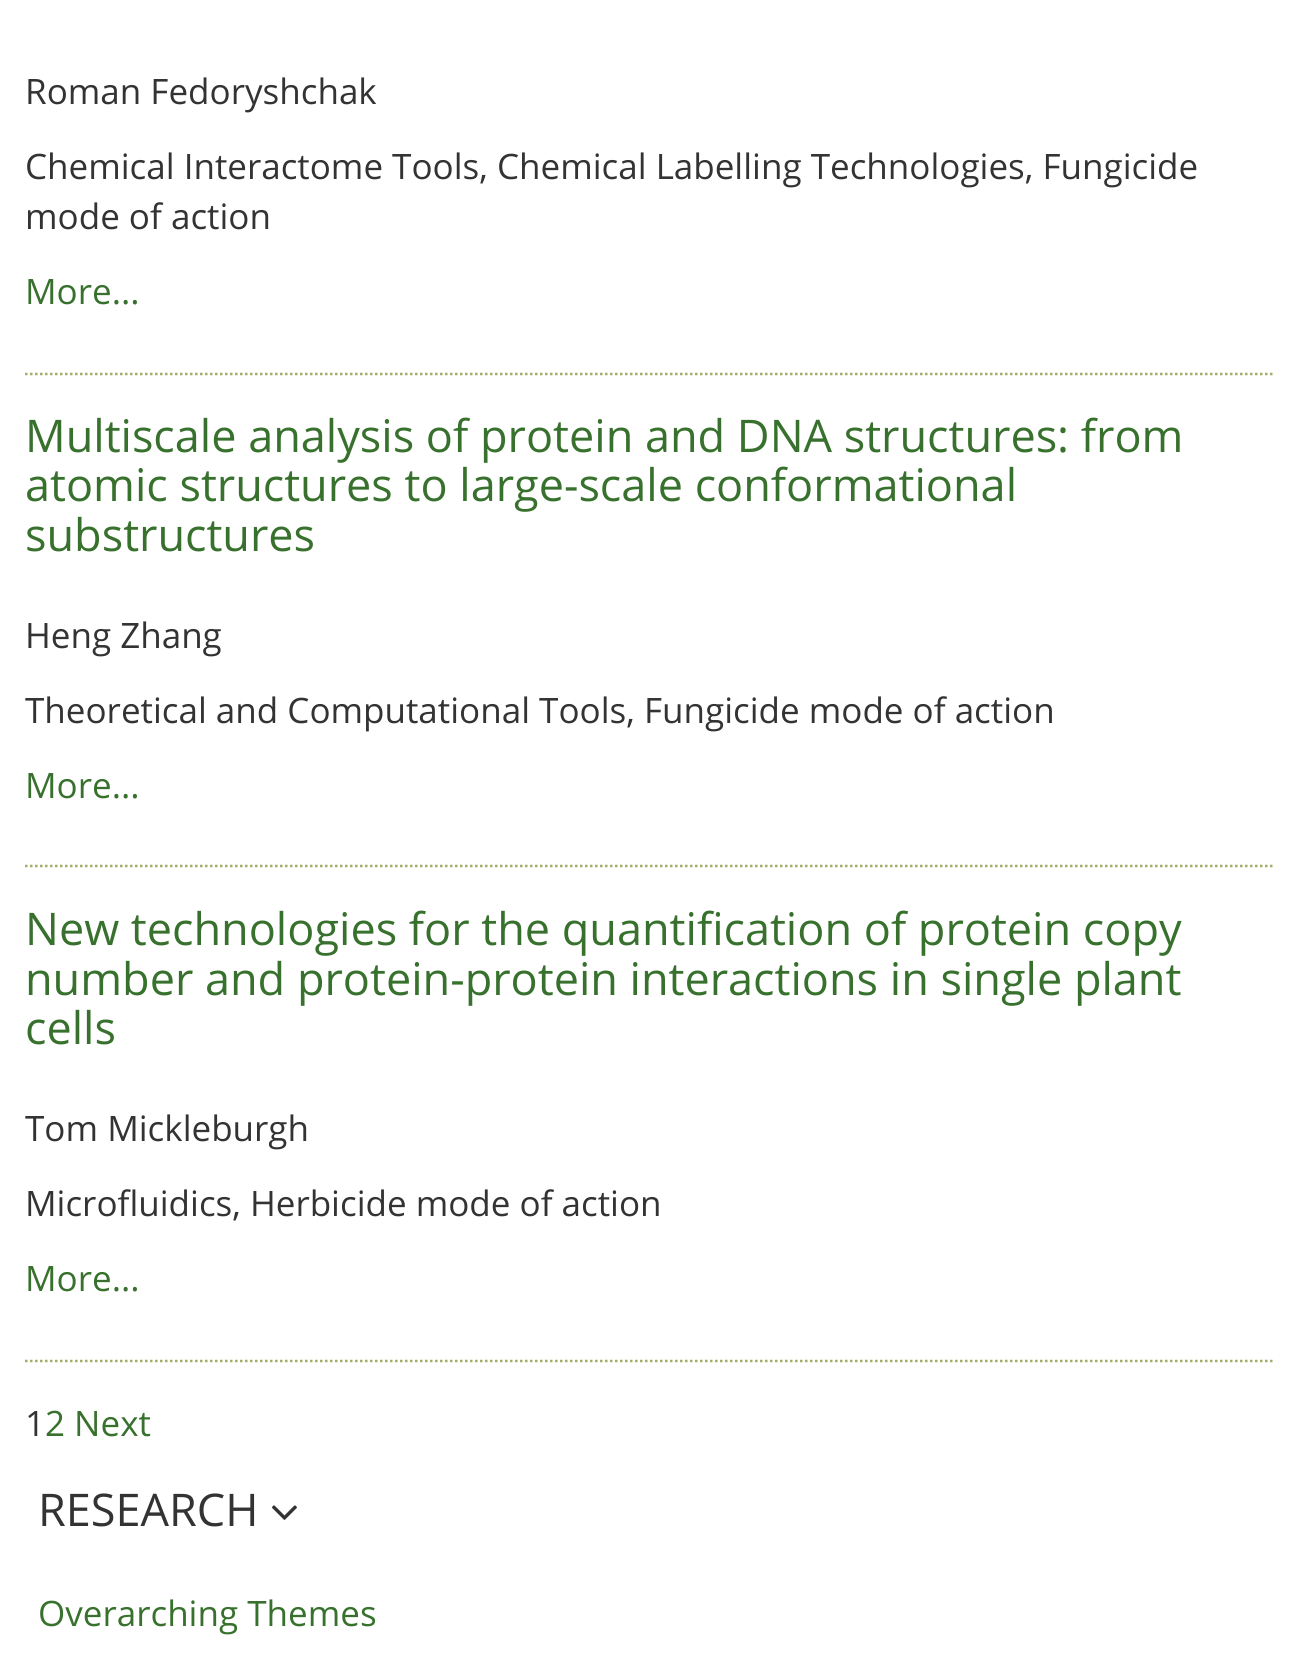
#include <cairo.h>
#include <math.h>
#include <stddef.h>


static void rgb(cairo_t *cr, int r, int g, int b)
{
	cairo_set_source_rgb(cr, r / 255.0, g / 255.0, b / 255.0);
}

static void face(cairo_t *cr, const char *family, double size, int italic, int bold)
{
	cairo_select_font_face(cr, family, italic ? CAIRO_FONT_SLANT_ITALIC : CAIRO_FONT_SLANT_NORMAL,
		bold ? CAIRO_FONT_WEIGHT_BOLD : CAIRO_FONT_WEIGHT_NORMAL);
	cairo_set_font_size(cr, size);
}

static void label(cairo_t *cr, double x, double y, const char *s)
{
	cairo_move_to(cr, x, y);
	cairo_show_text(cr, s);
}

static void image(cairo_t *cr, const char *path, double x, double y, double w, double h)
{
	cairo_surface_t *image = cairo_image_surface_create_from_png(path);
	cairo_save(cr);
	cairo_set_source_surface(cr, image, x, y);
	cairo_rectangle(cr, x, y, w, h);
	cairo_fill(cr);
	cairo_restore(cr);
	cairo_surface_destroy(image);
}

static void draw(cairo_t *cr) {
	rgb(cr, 255, 255, 255);
	cairo_paint(cr);
	cairo_new_path(cr);
	cairo_move_to(cr, 25, 374);
	cairo_line_to(cr, 1275, 374);
	rgb(cr, 159, 174, 105);
	cairo_set_line_width(cr, 2.5);
	cairo_set_dash(cr, (double[]){2.5, 2.5}, 2, 0);
	cairo_stroke(cr);
	face(cr, "Open Sans", 35, 0, 0);
	rgb(cr, 51, 51, 51);
	label(cr, 25, 104, "Roman Fedoryshchak");
	label(cr, 25, 179, "Chemical Interactome Tools, Chemical Labelling Technologies, Fungicide");
	label(cr, 25, 229, "mode of action");
	rgb(cr, 56, 113, 45);
	label(cr, 25, 304, "More...");
	cairo_new_path(cr);
	cairo_move_to(cr, 25, 866);
	cairo_line_to(cr, 1275, 866);
	rgb(cr, 159, 174, 105);
	cairo_stroke(cr);
	face(cr, "Open Sans", 45, 0, 0);
	rgb(cr, 56, 113, 45);
	label(cr, 25, 452, "Multiscale analysis of protein and DNA structures: from");
	label(cr, 25, 501, "atomic structures to large-scale conformational");
	label(cr, 25, 551, "substructures");
	face(cr, "Open Sans", 35, 0, 0);
	rgb(cr, 51, 51, 51);
	label(cr, 25, 648, "Heng Zhang");
	label(cr, 25, 723, "Theoretical and Computational Tools, Fungicide mode of action");
	rgb(cr, 56, 113, 45);
	label(cr, 25, 798, "More...");
	cairo_new_path(cr);
	cairo_move_to(cr, 25, 1361);
	cairo_line_to(cr, 1275, 1361);
	rgb(cr, 159, 174, 105);
	cairo_stroke(cr);
	face(cr, "Open Sans", 45, 0, 0);
	rgb(cr, 56, 113, 45);
	label(cr, 25, 945, "New technologies for the quantification of protein copy");
	label(cr, 25, 995, "number and protein-protein interactions in single plant");
	label(cr, 25, 1044, "cells");
	face(cr, "Open Sans", 35, 0, 0);
	rgb(cr, 51, 51, 51);
	label(cr, 25, 1141, "Tom Mickleburgh");
	label(cr, 25, 1216, "Microfluidics, Herbicide mode of action");
	rgb(cr, 56, 113, 45);
	label(cr, 25, 1291, "More...");
	rgb(cr, 51, 51, 51);
	label(cr, 25, 1436, "1");
	rgb(cr, 56, 113, 45);
	label(cr, 45, 1436, "2 Next");
	face(cr, "Open Sans", 45, 0, 0);
	rgb(cr, 51, 51, 51);
	label(cr, 38, 1526, "RESEARCH");
	image(cr, "image0.png", 272, 1505, 25, 15);
	face(cr, "Open Sans", 35, 0, 0);
	rgb(cr, 56, 113, 45);
	label(cr, 38, 1626, "Overarching Themes");
}

int main(void) {
	cairo_surface_t *surface = cairo_image_surface_create(CAIRO_FORMAT_RGB24, 1300, 1663);
	cairo_t *cr = cairo_create(surface);
	cairo_font_options_t *options = cairo_font_options_create();
	cairo_font_options_set_hint_metrics(options, CAIRO_HINT_METRICS_OFF);
	cairo_font_options_set_hint_style(options, CAIRO_HINT_STYLE_NONE);
	cairo_set_font_options(cr, options);
	cairo_set_miter_limit(cr, 4);
	draw(cr);
	cairo_surface_write_to_png(surface, "render.png");
	cairo_font_options_destroy(options);
	cairo_destroy(cr);
	cairo_surface_destroy(surface);
	return 0;
}
